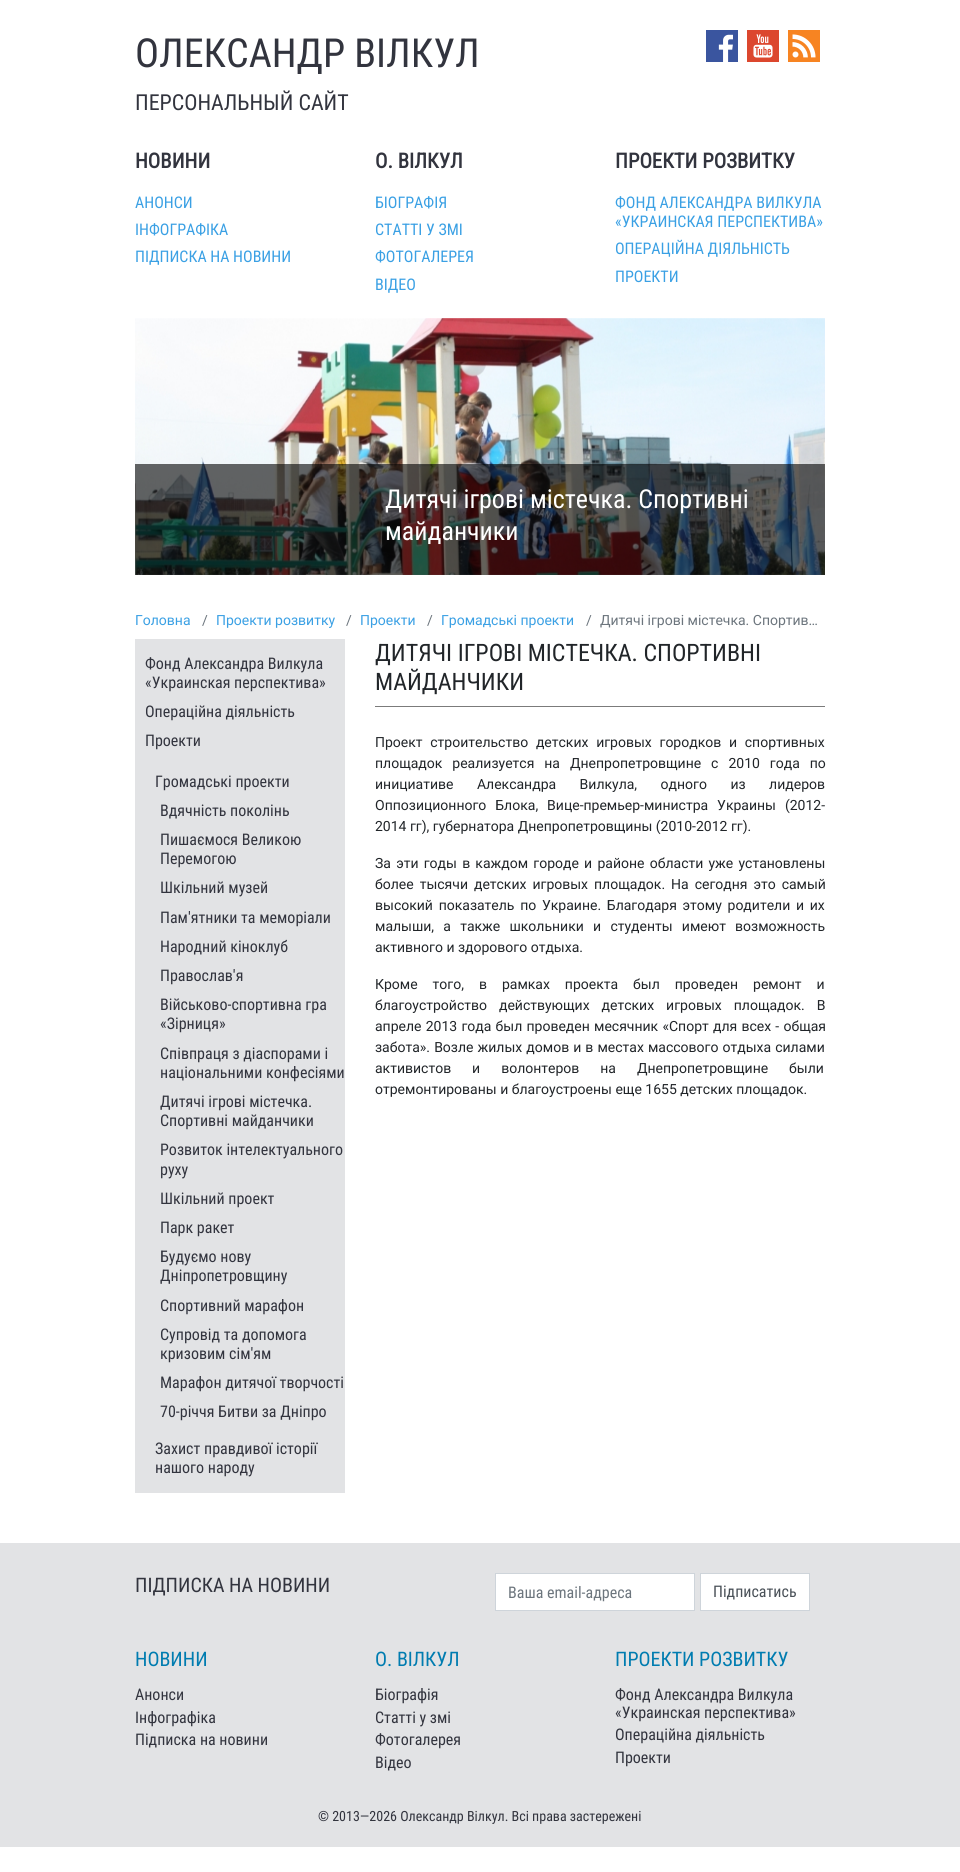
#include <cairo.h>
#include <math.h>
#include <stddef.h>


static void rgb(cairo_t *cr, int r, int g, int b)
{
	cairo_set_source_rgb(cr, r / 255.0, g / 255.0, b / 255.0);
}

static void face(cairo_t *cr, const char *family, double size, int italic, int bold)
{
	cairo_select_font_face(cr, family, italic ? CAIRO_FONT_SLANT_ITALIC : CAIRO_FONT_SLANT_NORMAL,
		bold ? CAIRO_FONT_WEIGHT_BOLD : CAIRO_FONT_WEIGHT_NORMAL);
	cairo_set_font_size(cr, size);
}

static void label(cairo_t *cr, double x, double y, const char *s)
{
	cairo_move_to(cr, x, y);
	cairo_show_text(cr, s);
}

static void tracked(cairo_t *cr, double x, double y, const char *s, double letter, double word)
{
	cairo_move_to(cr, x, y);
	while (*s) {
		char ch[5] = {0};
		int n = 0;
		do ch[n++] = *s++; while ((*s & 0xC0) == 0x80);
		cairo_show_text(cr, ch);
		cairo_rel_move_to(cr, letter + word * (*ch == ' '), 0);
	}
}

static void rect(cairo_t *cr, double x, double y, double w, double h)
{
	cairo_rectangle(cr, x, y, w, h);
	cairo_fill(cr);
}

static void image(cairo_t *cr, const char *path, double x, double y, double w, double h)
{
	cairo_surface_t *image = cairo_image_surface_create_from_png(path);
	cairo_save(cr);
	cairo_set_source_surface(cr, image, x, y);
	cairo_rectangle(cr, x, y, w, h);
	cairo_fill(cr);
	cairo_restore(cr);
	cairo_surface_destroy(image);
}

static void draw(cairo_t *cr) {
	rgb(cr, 255, 255, 255);
	cairo_paint(cr);
	face(cr, "Roboto Condensed", 40, 0, 0);
	rgb(cr, 50, 52, 62);
	label(cr, 135, 67, "ОЛЕКСАНДР ВІЛКУЛ");
	image(cr, "image0.png", 706, 30, 32, 32);
	image(cr, "image1.png", 747, 30, 32, 32);
	image(cr, "image2.png", 788, 30, 32, 32);
	face(cr, "Roboto Condensed", 22, 0, 0);
	label(cr, 135, 110, "ПЕРСОНАЛЬНЫЙ САЙТ");
	face(cr, "Roboto Condensed", 20.75, 0, 1);
	label(cr, 135, 168, "НОВИНИ");
	face(cr, "Roboto Condensed", 16, 0, 0);
	rgb(cr, 58, 160, 228);
	label(cr, 135, 208, "АНОНСИ");
	label(cr, 135, 235, "ІНФОГРАФІКА");
	label(cr, 135, 262, "ПІДПИСКА НА НОВИНИ");
	face(cr, "Roboto Condensed", 20.75, 0, 1);
	rgb(cr, 50, 52, 62);
	label(cr, 375, 168, "О. ВІЛКУЛ");
	face(cr, "Roboto Condensed", 16, 0, 0);
	rgb(cr, 58, 160, 228);
	label(cr, 375, 208, "БІОГРАФІЯ");
	label(cr, 375, 235, "СТАТТІ У ЗМІ");
	label(cr, 375, 262, "ФОТОГАЛЕРЕЯ");
	label(cr, 375, 290, "ВІДЕО");
	face(cr, "Roboto Condensed", 20.75, 0, 1);
	rgb(cr, 50, 52, 62);
	label(cr, 615, 168, "ПРОЕКТИ РОЗВИТКУ");
	face(cr, "Roboto Condensed", 16, 0, 0);
	rgb(cr, 58, 160, 228);
	label(cr, 615, 208, "ФОНД АЛЕКСАНДРА ВИЛКУЛА");
	label(cr, 615, 227, "«УКРАИНСКАЯ ПЕРСПЕКТИВА»");
	label(cr, 615, 254, "ОПЕРАЦІЙНА ДІЯЛЬНІСТЬ");
	label(cr, 615, 282, "ПРОЕКТИ");
	image(cr, "image3.png", 135, 318, 690, 257);
	cairo_set_source_rgba(cr, 0, 0, 0, 0.6);
	rect(cr, 135, 464, 690, 111);
	face(cr, "Roboto Condensed", 26, 0, 0);
	rgb(cr, 255, 255, 255);
	label(cr, 385, 508, "Дитячі ігрові містечка. Спортивні");
	label(cr, 385, 540, "майданчики");
	face(cr, "Roboto", 14, 0, 0);
	rgb(cr, 58, 160, 228);
	label(cr, 135, 625, "Головна");
	rgb(cr, 108, 117, 125);
	label(cr, 202, 625, "/");
	rgb(cr, 58, 160, 228);
	label(cr, 216, 625, "Проекти розвитку");
	rgb(cr, 108, 117, 125);
	label(cr, 346, 625, "/");
	rgb(cr, 58, 160, 228);
	label(cr, 360, 625, "Проекти");
	rgb(cr, 108, 117, 125);
	label(cr, 427, 625, "/");
	rgb(cr, 58, 160, 228);
	label(cr, 441, 625, "Громадські проекти");
	rgb(cr, 108, 117, 125);
	label(cr, 586, 625, "/");
	label(cr, 600, 625, "Дитячі ігрові містечка. Спортив…");
	rgb(cr, 226, 227, 229);
	rect(cr, 135, 639, 210, 854);
	face(cr, "Roboto Condensed", 16, 0, 0);
	rgb(cr, 50, 52, 62);
	label(cr, 145, 669, "Фонд Александра Вилкула");
	label(cr, 145, 688, "«Украинская перспектива»");
	label(cr, 145, 717, "Операційна діяльність");
	label(cr, 145, 746, "Проекти");
	label(cr, 155, 787, "Громадські проекти");
	label(cr, 160, 816, "Вдячність поколінь");
	label(cr, 160, 845, "Пишаємося Великою");
	label(cr, 160, 864, "Перемогою");
	label(cr, 160, 893, "Шкільний музей");
	label(cr, 160, 923, "Пам'ятники та меморіали");
	label(cr, 160, 952, "Народний кіноклуб");
	label(cr, 160, 981, "Православ'я");
	label(cr, 160, 1010, "Військово-спортивна гра");
	label(cr, 160, 1029, "«Зірниця»");
	label(cr, 160, 1059, "Співпраця з діаспорами і");
	label(cr, 160, 1078, "національними конфесіями");
	label(cr, 160, 1107, "Дитячі ігрові містечка.");
	label(cr, 160, 1126, "Спортивні майданчики");
	label(cr, 160, 1155, "Розвиток інтелектуального");
	label(cr, 160, 1175, "руху");
	label(cr, 160, 1204, "Шкільний проект");
	label(cr, 160, 1233, "Парк ракет");
	label(cr, 160, 1262, "Будуємо нову");
	label(cr, 160, 1281, "Дніпропетровщину");
	label(cr, 160, 1311, "Спортивний марафон");
	label(cr, 160, 1340, "Супровід та допомога");
	label(cr, 160, 1359, "кризовим сім'ям");
	label(cr, 160, 1388, "Марафон дитячої творчості");
	label(cr, 160, 1417, "70-річчя Битви за Дніпро");
	label(cr, 155, 1454, "Захист правдивої історії");
	label(cr, 155, 1473, "нашого народу");
	rgb(cr, 123, 123, 123);
	rect(cr, 375, 706, 450, 1);
	face(cr, "Roboto Condensed", 24, 0, 0);
	rgb(cr, 33, 37, 41);
	label(cr, 375, 661, "ДИТЯЧІ ІГРОВІ МІСТЕЧКА. СПОРТИВНІ");
	label(cr, 375, 690, "МАЙДАНЧИКИ");
	face(cr, "Roboto", 14, 0, 0);
	tracked(cr, 375, 747, "Проект строительство детских игровых городков и спортивных", 0, 4.25);
	tracked(cr, 375, 768, "площадок реализуется на Днепропетровщине с 2010 года по", 0, 6.5);
	tracked(cr, 375, 789, "инициативе Александра Вилкула, одного из лидеров", 0, 20);
	tracked(cr, 375, 810, "Оппозиционного Блока, Вице-премьер-министра Украины (2012-", 0, 5.5);
	label(cr, 375, 831, "2014 гг), губернатора Днепропетровщины (2010-2012 гг).");
	tracked(cr, 375, 868, "За эти годы в каждом городе и районе области уже установлены", 0, 1.75);
	tracked(cr, 375, 889, "более тысячи детских игровых площадок. На сегодня это самый", 0, 2.5);
	tracked(cr, 375, 910, "высокий показатель по Украине. Благодаря этому родители и их", 0, 2.25);
	tracked(cr, 375, 931, "малыши, а также школьники и студенты имеют возможность", 0, 5.75);
	label(cr, 375, 952, "активного и здорового отдыха.");
	tracked(cr, 375, 989, "Кроме того, в рамках проекта был проведен ремонт и", 0, 11.5);
	tracked(cr, 375, 1010, "благоустройство действующих детских игровых площадок. В", 0, 8.5);
	tracked(cr, 375, 1031, "апреле 2013 года был проведен месячник «Спорт для всех - общая", 0, 0.75);
	tracked(cr, 375, 1052, "забота». Возле жилых домов и в местах массового отдыха силами", 0, 0.6);
	tracked(cr, 375, 1073, "активистов и волонтеров на Днепропетровщине были", 0, 17.5);
	label(cr, 375, 1094, "отремонтированы и благоустроены еще 1655 детских площадок.");
	rgb(cr, 226, 227, 229);
	rect(cr, 0, 1543, 960, 304);
	face(cr, "Roboto Condensed", 20, 0, 0);
	rgb(cr, 50, 52, 62);
	label(cr, 135, 1592, "ПІДПИСКА НА НОВИНИ");
	rgb(cr, 255, 255, 255);
	cairo_rectangle(cr, 495.5, 1573.5, 199, 37);
	cairo_fill_preserve(cr);
	rgb(cr, 206, 212, 218);
	cairo_set_line_width(cr, 1);
	cairo_stroke(cr);
	face(cr, "Roboto Condensed", 16, 0, 0);
	rgb(cr, 108, 117, 125);
	label(cr, 508, 1598, "Ваша email-адреса");
	rgb(cr, 255, 255, 255);
	cairo_rectangle(cr, 700.5, 1573.5, 109, 37);
	cairo_fill_preserve(cr);
	rgb(cr, 206, 212, 218);
	cairo_stroke(cr);
	rgb(cr, 73, 80, 87);
	label(cr, 713, 1597, "Підписатись");
	face(cr, "Roboto Condensed", 20, 0, 0);
	rgb(cr, 0, 124, 176);
	label(cr, 135, 1666, "НОВИНИ");
	face(cr, "Roboto Condensed", 16, 0, 0);
	rgb(cr, 50, 52, 62);
	label(cr, 135, 1700, "Анонси");
	label(cr, 135, 1723, "Інфографіка");
	label(cr, 135, 1745, "Підписка на новини");
	face(cr, "Roboto Condensed", 20, 0, 0);
	rgb(cr, 0, 124, 176);
	label(cr, 375, 1666, "О. ВІЛКУЛ");
	face(cr, "Roboto Condensed", 16, 0, 0);
	rgb(cr, 50, 52, 62);
	label(cr, 375, 1700, "Біографія");
	label(cr, 375, 1723, "Статті у змі");
	label(cr, 375, 1745, "Фотогалерея");
	label(cr, 375, 1768, "Відео");
	face(cr, "Roboto Condensed", 20, 0, 0);
	rgb(cr, 0, 124, 176);
	label(cr, 615, 1666, "ПРОЕКТИ РОЗВИТКУ");
	face(cr, "Roboto Condensed", 16, 0, 0);
	rgb(cr, 50, 52, 62);
	label(cr, 615, 1700, "Фонд Александра Вилкула");
	label(cr, 615, 1718, "«Украинская перспектива»");
	label(cr, 615, 1740, "Операційна діяльність");
	label(cr, 615, 1763, "Проекти");
	face(cr, "Roboto Condensed", 14, 0, 0);
	label(cr, 318, 1821, "© 2013—2026 Олександр Вілкул. Всі права застережені");
}

int main(void) {
	cairo_surface_t *surface = cairo_image_surface_create(CAIRO_FORMAT_RGB24, 960, 1872);
	cairo_t *cr = cairo_create(surface);
	cairo_font_options_t *options = cairo_font_options_create();
	cairo_font_options_set_hint_metrics(options, CAIRO_HINT_METRICS_OFF);
	cairo_font_options_set_hint_style(options, CAIRO_HINT_STYLE_NONE);
	cairo_set_font_options(cr, options);
	cairo_set_miter_limit(cr, 4);
	draw(cr);
	cairo_surface_write_to_png(surface, "render.png");
	cairo_font_options_destroy(options);
	cairo_destroy(cr);
	cairo_surface_destroy(surface);
	return 0;
}
